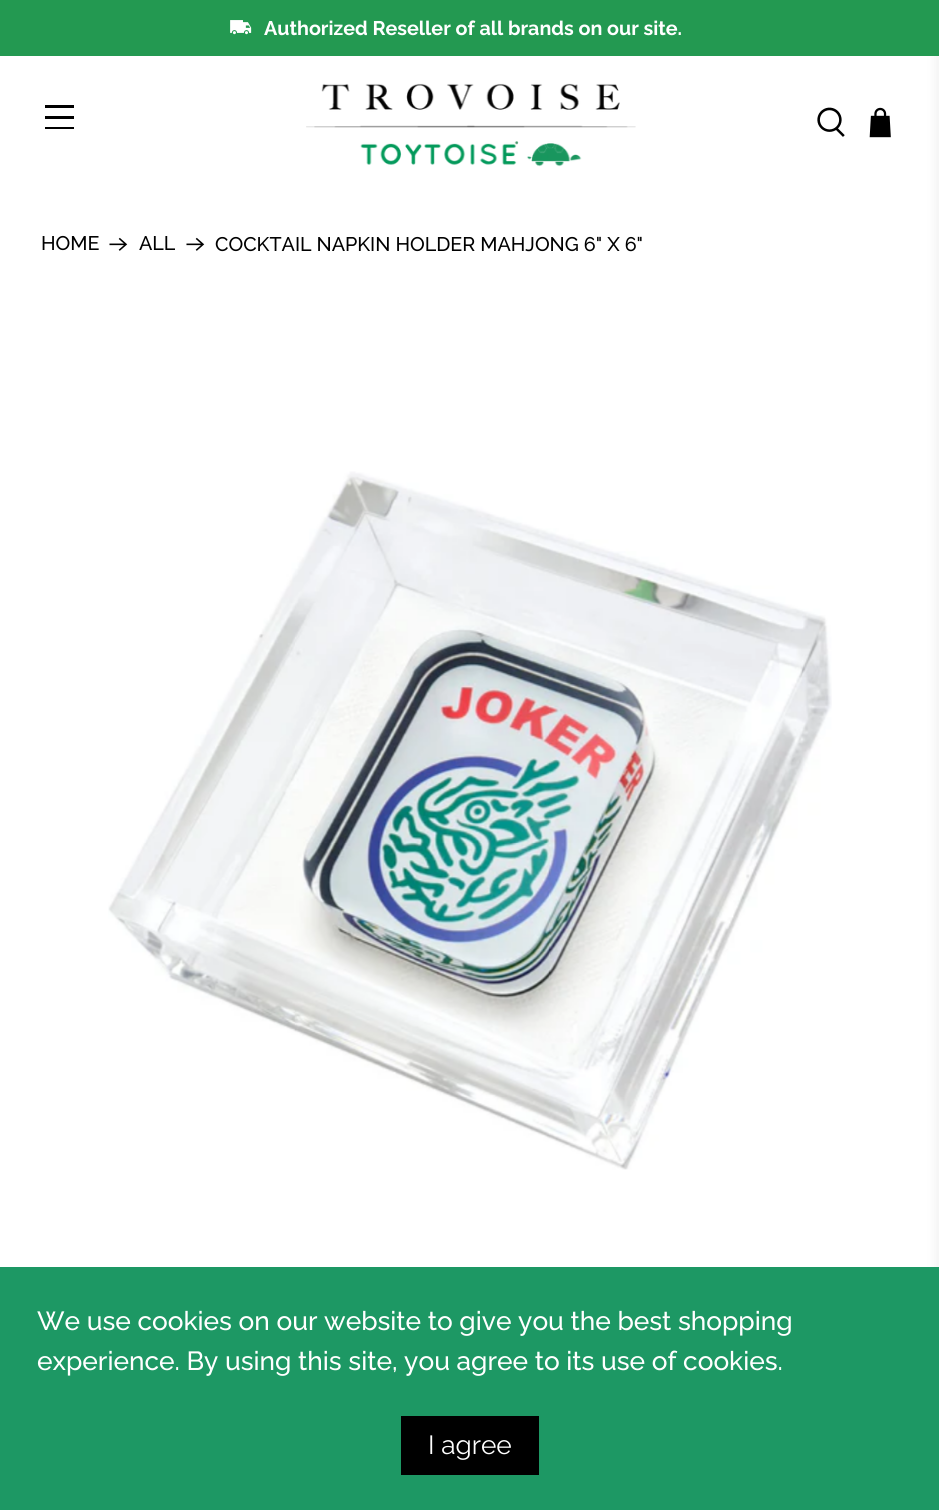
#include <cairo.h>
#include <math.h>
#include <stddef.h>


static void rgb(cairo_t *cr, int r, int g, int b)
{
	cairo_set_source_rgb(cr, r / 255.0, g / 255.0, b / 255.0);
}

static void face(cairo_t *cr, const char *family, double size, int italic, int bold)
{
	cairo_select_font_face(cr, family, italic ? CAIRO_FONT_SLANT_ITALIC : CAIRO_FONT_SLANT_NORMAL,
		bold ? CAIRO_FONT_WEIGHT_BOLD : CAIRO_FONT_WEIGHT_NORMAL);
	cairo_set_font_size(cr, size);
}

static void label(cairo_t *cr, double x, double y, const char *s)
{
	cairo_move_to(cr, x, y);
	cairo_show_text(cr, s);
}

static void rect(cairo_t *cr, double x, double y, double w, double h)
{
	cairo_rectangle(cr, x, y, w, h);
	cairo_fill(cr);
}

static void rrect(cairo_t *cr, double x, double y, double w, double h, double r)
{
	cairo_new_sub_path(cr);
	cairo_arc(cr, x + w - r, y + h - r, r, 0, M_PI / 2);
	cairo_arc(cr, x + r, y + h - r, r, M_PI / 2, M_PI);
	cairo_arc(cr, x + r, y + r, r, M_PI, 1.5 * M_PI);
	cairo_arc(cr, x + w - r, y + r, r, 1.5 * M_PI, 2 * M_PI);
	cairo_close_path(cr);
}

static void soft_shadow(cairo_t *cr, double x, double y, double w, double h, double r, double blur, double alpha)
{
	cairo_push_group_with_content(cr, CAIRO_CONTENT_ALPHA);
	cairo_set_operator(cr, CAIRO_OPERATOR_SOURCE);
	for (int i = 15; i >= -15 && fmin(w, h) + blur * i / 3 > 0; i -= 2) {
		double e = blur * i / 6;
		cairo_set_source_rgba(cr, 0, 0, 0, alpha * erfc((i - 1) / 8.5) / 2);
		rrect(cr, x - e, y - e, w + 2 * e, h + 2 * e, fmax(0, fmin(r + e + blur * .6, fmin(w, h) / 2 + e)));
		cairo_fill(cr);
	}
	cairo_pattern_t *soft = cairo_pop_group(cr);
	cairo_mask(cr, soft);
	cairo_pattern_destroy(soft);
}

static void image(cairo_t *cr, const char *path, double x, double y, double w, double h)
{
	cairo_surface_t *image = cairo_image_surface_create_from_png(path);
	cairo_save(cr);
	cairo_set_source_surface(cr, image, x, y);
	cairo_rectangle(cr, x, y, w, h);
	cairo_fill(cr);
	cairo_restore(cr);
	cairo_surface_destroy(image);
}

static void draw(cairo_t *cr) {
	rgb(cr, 255, 255, 255);
	cairo_paint(cr);
	rgb(cr, 0, 0, 0);
	rect(cr, 45, 105, 29, 3);
	rect(cr, 45, 116, 29, 3);
	rect(cr, 45, 127, 29, 2);
	image(cr, "image0.png", 306, 83, 330, 84);
	image(cr, "image1.png", 817, 107, 28, 30);
	image(cr, "image2.png", 869, 107, 22, 31);
	rgb(cr, 10, 10, 10);
	soft_shadow(cr, 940, 14, 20, 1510, 0, 7, 0.1);
	rgb(cr, 35, 153, 81);
	rect(cr, 0, 0, 939, 56);
	image(cr, "image3.png", 230, 20, 22, 15);
	face(cr, "Raleway", 19.7, 0, 1);
	rgb(cr, 255, 255, 255);
	label(cr, 264, 35, "Authorized Reseller of all brands on our site.");
	face(cr, "Raleway Medium", 19.7, 0, 0);
	rgb(cr, 0, 0, 0);
	label(cr, 41, 250, "HOME");
	image(cr, "image4.png", 109, 237, 19, 14);
	label(cr, 139, 250, "ALL");
	image(cr, "image4.png", 186, 237, 19, 14);
	label(cr, 215, 251, "COCKTAIL NAPKIN HOLDER MAHJONG 6\" X 6\"");
	image(cr, "image5.png", 108, 471, 724, 699);
	rgb(cr, 29, 152, 100);
	rect(cr, 0, 1267, 939, 243);
	face(cr, "Raleway Medium", 26.25, 0, 0);
	rgb(cr, 255, 255, 255);
	label(cr, 37, 1330, "We use cookies on our website to give you the best shopping");
	label(cr, 37, 1370, "experience. By using this site, you agree to its use of cookies.");
	rgb(cr, 0, 0, 0);
	rect(cr, 401, 1416, 138, 59);
	face(cr, "Raleway", 26.25, 0, 0);
	rgb(cr, 255, 255, 255);
	label(cr, 428, 1454, "I agree");
}

int main(void) {
	cairo_surface_t *surface = cairo_image_surface_create(CAIRO_FORMAT_RGB24, 939, 1510);
	cairo_t *cr = cairo_create(surface);
	cairo_font_options_t *options = cairo_font_options_create();
	cairo_font_options_set_hint_metrics(options, CAIRO_HINT_METRICS_OFF);
	cairo_font_options_set_hint_style(options, CAIRO_HINT_STYLE_NONE);
	cairo_set_font_options(cr, options);
	cairo_set_miter_limit(cr, 4);
	draw(cr);
	cairo_surface_write_to_png(surface, "render.png");
	cairo_font_options_destroy(options);
	cairo_destroy(cr);
	cairo_surface_destroy(surface);
	return 0;
}
